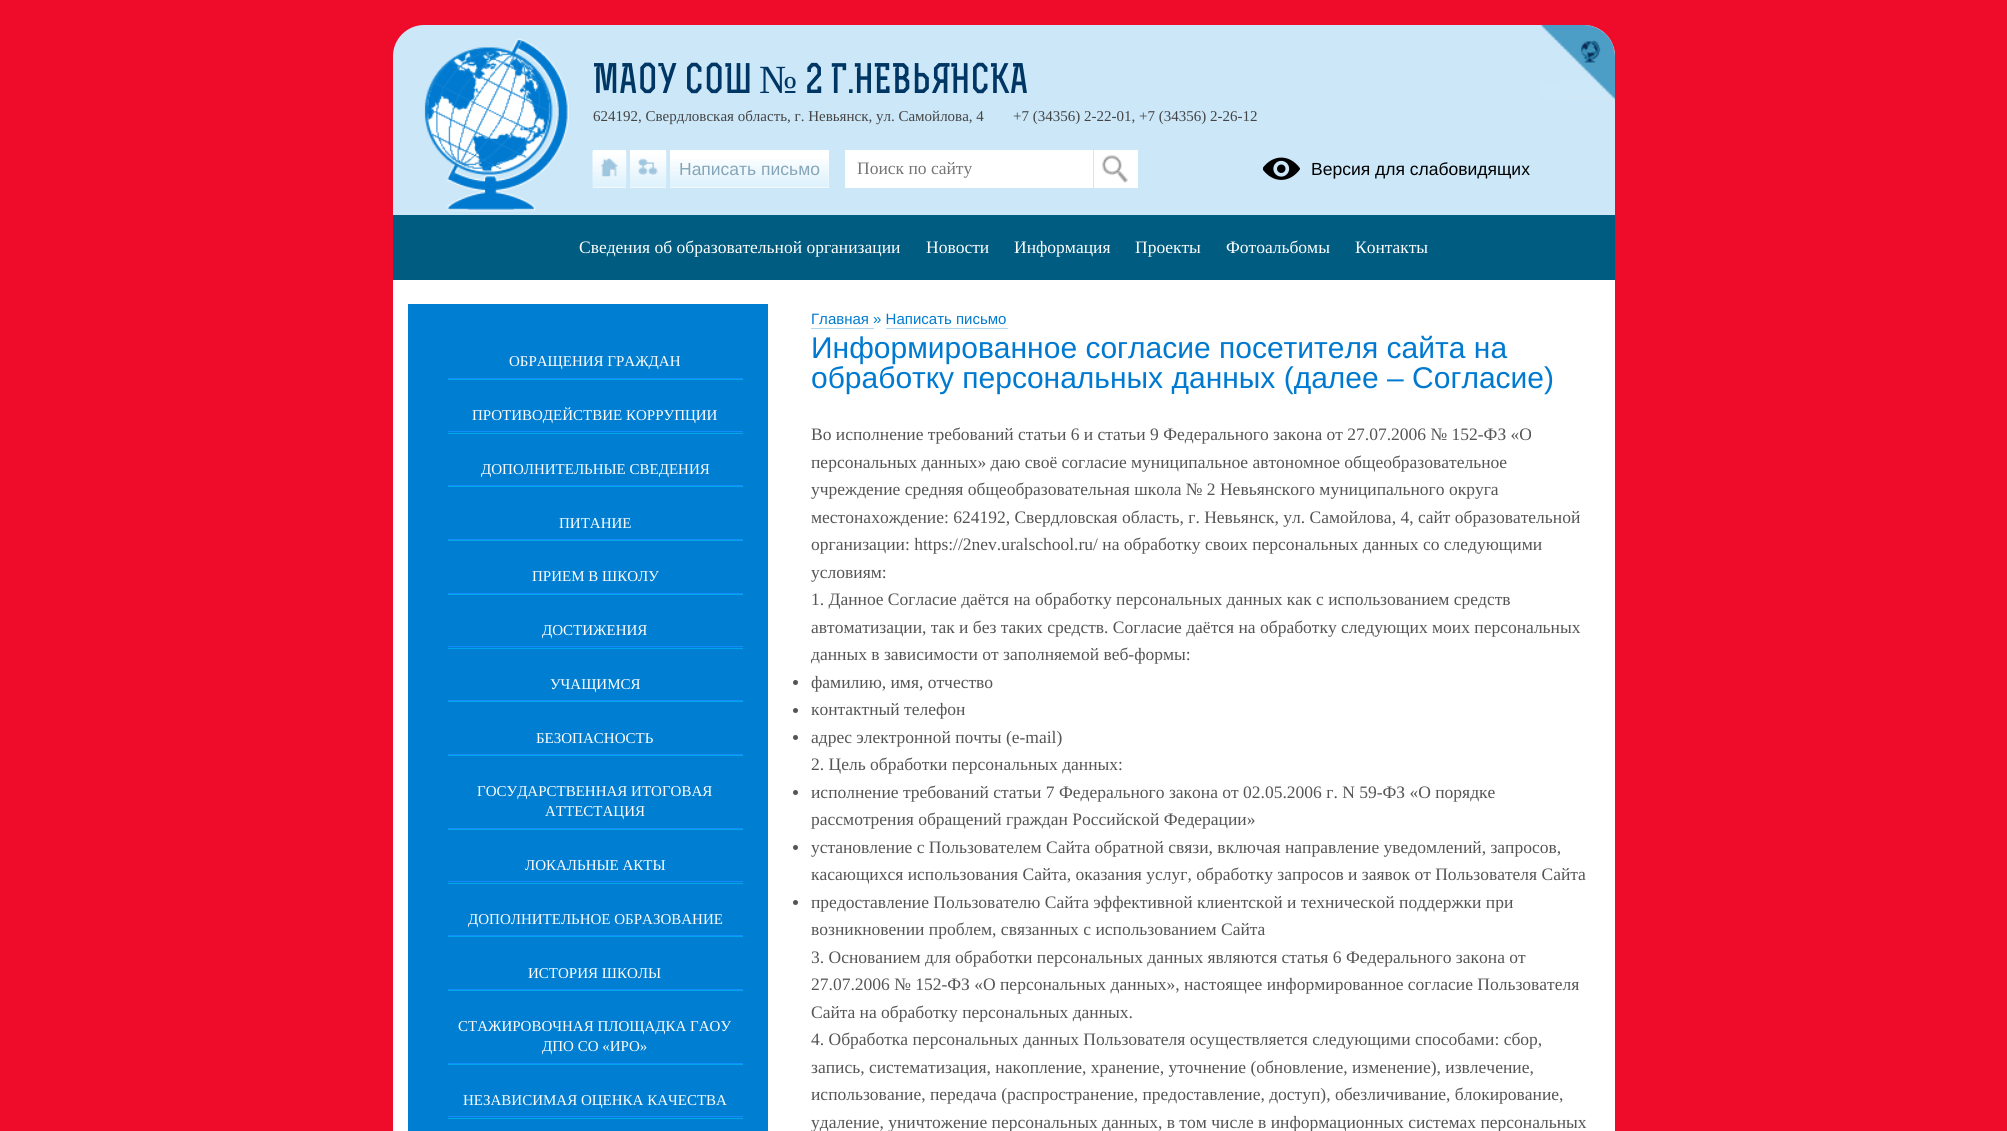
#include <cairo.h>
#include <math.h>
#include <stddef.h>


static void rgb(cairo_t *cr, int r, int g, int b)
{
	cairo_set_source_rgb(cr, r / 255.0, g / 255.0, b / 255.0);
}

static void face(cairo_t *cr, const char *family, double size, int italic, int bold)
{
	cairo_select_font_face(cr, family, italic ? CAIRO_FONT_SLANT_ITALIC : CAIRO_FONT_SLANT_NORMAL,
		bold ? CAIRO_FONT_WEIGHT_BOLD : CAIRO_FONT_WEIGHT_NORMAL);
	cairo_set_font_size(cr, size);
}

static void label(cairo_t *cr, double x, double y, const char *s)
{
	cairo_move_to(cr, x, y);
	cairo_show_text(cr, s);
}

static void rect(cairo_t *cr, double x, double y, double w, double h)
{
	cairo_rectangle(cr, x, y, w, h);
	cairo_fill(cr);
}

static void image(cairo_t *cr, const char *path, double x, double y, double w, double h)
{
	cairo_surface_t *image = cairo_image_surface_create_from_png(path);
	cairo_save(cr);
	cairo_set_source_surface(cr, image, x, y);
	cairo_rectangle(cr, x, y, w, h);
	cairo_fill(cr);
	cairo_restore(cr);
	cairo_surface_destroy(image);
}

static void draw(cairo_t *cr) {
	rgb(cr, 238, 12, 42);
	cairo_paint(cr);
	rgb(cr, 203, 231, 248);
	cairo_new_path(cr);
	cairo_move_to(cr, 424, 25);
	cairo_line_to(cr, 1584, 25);
	cairo_curve_to(cr, 1601, 25, 1615, 39, 1615, 56);
	cairo_line_to(cr, 1615, 215);
	cairo_line_to(cr, 393, 215);
	cairo_line_to(cr, 393, 56);
	cairo_curve_to(cr, 393, 39, 407, 25, 424, 25);
	cairo_close_path(cr);
	cairo_fill(cr);
	image(cr, "image0.png", 424, 38, 145, 174);
	face(cr, "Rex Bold", 40, 0, 1);
	rgb(cr, 0, 54, 100);
	label(cr, 593, 93, "МАОУ СОШ");
	face(cr, "Liberation Serif", 40, 0, 0);
	label(cr, 759, 93, "№");
	face(cr, "Rex Bold", 40, 0, 1);
	label(cr, 805, 93, "2 Г.НЕВЬЯНСКА");
	face(cr, "Liberation Serif", 15, 0, 0);
	rgb(cr, 68, 68, 68);
	label(cr, 593, 121, "624192, Свердловская область, г. Невьянск, ул. Самойлова, 4");
	label(cr, 1013, 121, "+7 (34356) 2-22-01, +7 (34356) 2-26-12");
	image(cr, "image1.png", 1541, 25, 74, 75);
	rgb(cr, 255, 255, 255);
	rect(cr, 593, 150, 33, 38);
	image(cr, "image2.png", 592, 151, 35, 37);
	image(cr, "image3.png", 601, 158, 17, 19);
	rect(cr, 630, 150, 36, 38);
	image(cr, "image4.png", 630, 151, 37, 37);
	image(cr, "image5.png", 638, 158, 20, 17);
	rect(cr, 670, 150, 159, 38);
	image(cr, "image6.png", 670, 159, 159, 29);
	face(cr, "Liberation Sans", 17.5, 0, 0);
	rgb(cr, 133, 166, 185);
	label(cr, 679, 175, "Написать письмо");
	rgb(cr, 255, 255, 255);
	rect(cr, 845, 150, 248, 38);
	face(cr, "Liberation Serif", 17.5, 0, 0);
	rgb(cr, 117, 117, 117);
	label(cr, 857, 174, "Поиск по сайту");
	rgb(cr, 255, 255, 255);
	rect(cr, 1094, 150, 44, 38);
	image(cr, "image7.png", 1102, 155, 26, 28);
	image(cr, "image8.png", 1263, 157, 37, 23);
	face(cr, "Liberation Sans", 17.5, 0, 0);
	rgb(cr, 0, 0, 0);
	label(cr, 1311, 175, "Версия для слабовидящих");
	rgb(cr, 0, 92, 129);
	rect(cr, 393, 215, 1222, 65);
	face(cr, "Liberation Serif", 17.5, 0, 0);
	rgb(cr, 255, 255, 255);
	label(cr, 579, 253, "Сведения об образовательной организации");
	label(cr, 926, 253, "Новости");
	label(cr, 1014, 253, "Информация");
	label(cr, 1135, 253, "Проекты");
	label(cr, 1226, 253, "Фотоальбомы");
	label(cr, 1355, 253, "Контакты");
	rect(cr, 393, 280, 1222, 851);
	rgb(cr, 0, 126, 210);
	rect(cr, 408, 304, 360, 827);
	rgb(cr, 20, 139, 255);
	rect(cr, 448, 378, 295, 1);
	face(cr, "Liberation Serif", 15, 0, 0);
	rgb(cr, 255, 255, 255);
	label(cr, 509, 366, "ОБРАЩЕНИЯ ГРАЖДАН");
	rgb(cr, 0, 167, 232);
	rect(cr, 448, 379, 295, 1);
	rgb(cr, 20, 139, 255);
	rect(cr, 448, 431, 295, 1);
	rgb(cr, 255, 255, 255);
	label(cr, 472, 420, "ПРОТИВОДЕЙСТВИЕ КОРРУПЦИИ");
	rgb(cr, 0, 167, 232);
	rect(cr, 448, 433, 295, 1);
	rgb(cr, 20, 139, 255);
	rect(cr, 448, 485, 295, 1);
	rgb(cr, 255, 255, 255);
	label(cr, 481, 474, "ДОПОЛНИТЕЛЬНЫЕ СВЕДЕНИЯ");
	rgb(cr, 0, 167, 232);
	rect(cr, 448, 486, 295, 1);
	rgb(cr, 20, 139, 255);
	rect(cr, 448, 539, 295, 1);
	rgb(cr, 255, 255, 255);
	label(cr, 559, 528, "ПИТАНИЕ");
	rgb(cr, 0, 167, 232);
	rect(cr, 448, 540, 295, 1);
	rgb(cr, 20, 139, 255);
	rect(cr, 448, 593, 295, 1);
	rgb(cr, 255, 255, 255);
	label(cr, 532, 581, "ПРИЕМ В ШКОЛУ");
	rgb(cr, 0, 167, 232);
	rect(cr, 448, 594, 295, 1);
	rgb(cr, 20, 139, 255);
	rect(cr, 448, 646, 295, 1);
	rgb(cr, 255, 255, 255);
	label(cr, 542, 635, "ДОСТИЖЕНИЯ");
	rgb(cr, 0, 167, 232);
	rect(cr, 448, 648, 295, 1);
	rgb(cr, 20, 139, 255);
	rect(cr, 448, 700, 295, 1);
	rgb(cr, 255, 255, 255);
	label(cr, 550, 689, "УЧАЩИМСЯ");
	rgb(cr, 0, 167, 232);
	rect(cr, 448, 701, 295, 1);
	rgb(cr, 20, 139, 255);
	rect(cr, 448, 754, 295, 1);
	rgb(cr, 255, 255, 255);
	label(cr, 536, 743, "БЕЗОПАСНОСТЬ");
	rgb(cr, 0, 167, 232);
	rect(cr, 448, 755, 295, 1);
	rgb(cr, 20, 139, 255);
	rect(cr, 448, 828, 295, 1);
	rgb(cr, 255, 255, 255);
	label(cr, 477, 796, "ГОСУДАРСТВЕННАЯ ИТОГОВАЯ");
	label(cr, 545, 816, "АТТЕСТАЦИЯ");
	rgb(cr, 0, 167, 232);
	rect(cr, 448, 829, 295, 1);
	rgb(cr, 20, 139, 255);
	rect(cr, 448, 881, 295, 1);
	rgb(cr, 255, 255, 255);
	label(cr, 525, 870, "ЛОКАЛЬНЫЕ АКТЫ");
	rgb(cr, 0, 167, 232);
	rect(cr, 448, 883, 295, 1);
	rgb(cr, 20, 139, 255);
	rect(cr, 448, 935, 295, 1);
	rgb(cr, 255, 255, 255);
	label(cr, 468, 924, "ДОПОЛНИТЕЛЬНОЕ ОБРАЗОВАНИЕ");
	rgb(cr, 0, 167, 232);
	rect(cr, 448, 936, 295, 1);
	rgb(cr, 20, 139, 255);
	rect(cr, 448, 989, 295, 1);
	rgb(cr, 255, 255, 255);
	label(cr, 528, 978, "ИСТОРИЯ ШКОЛЫ");
	rgb(cr, 0, 167, 232);
	rect(cr, 448, 990, 295, 1);
	rgb(cr, 20, 139, 255);
	rect(cr, 448, 1063, 295, 1);
	rgb(cr, 255, 255, 255);
	label(cr, 458, 1031, "СТАЖИРОВОЧНАЯ ПЛОЩАДКА ГАОУ");
	label(cr, 542, 1051, "ДПО СО «ИРО»");
	rgb(cr, 0, 167, 232);
	rect(cr, 448, 1064, 295, 1);
	rgb(cr, 20, 139, 255);
	rect(cr, 448, 1116, 295, 1);
	rgb(cr, 255, 255, 255);
	label(cr, 463, 1105, "НЕЗАВИСИМАЯ ОЦЕНКА КАЧЕСТВА");
	rgb(cr, 0, 167, 232);
	rect(cr, 448, 1118, 295, 1);
	face(cr, "Liberation Sans", 15, 0, 0);
	rgb(cr, 0, 122, 208);
	label(cr, 811, 324, "Главная » Написать письмо");
	rgb(cr, 178, 215, 241);
	rect(cr, 811, 328, 63, 1);
	rect(cr, 886, 328, 122, 1);
	face(cr, "Liberation Sans", 30, 0, 0);
	rgb(cr, 0, 122, 208);
	label(cr, 811, 358, "Информированное согласие посетителя сайта на");
	label(cr, 811, 388, "обработку персональных данных (далее – Согласие)");
	face(cr, "Liberation Serif", 17.5, 0, 0);
	rgb(cr, 85, 85, 85);
	label(cr, 811, 440, "Во исполнение требований статьи 6 и статьи 9 Федерального закона от 27.07.2006 № 152-ФЗ «О");
	label(cr, 811, 468, "персональных данных» даю своё согласие муниципальное автономное общеобразовательное");
	label(cr, 811, 495, "учреждение средняя общеобразовательная школа № 2 Невьянского муниципального округа");
	label(cr, 811, 523, "местонахождение: 624192, Свердловская область, г. Невьянск, ул. Самойлова, 4, сайт образовательной");
	label(cr, 811, 550, "организации: https://2nev.uralschool.ru/ на обработку своих персональных данных со следующими");
	label(cr, 811, 578, "условиям:");
	label(cr, 811, 605, "1. Данное Согласие даётся на обработку персональных данных как с использованием средств");
	label(cr, 811, 633, "автоматизации, так и без таких средств. Согласие даётся на обработку следующих моих персональных");
	label(cr, 811, 660, "данных в зависимости от заполняемой веб-формы:");
	cairo_new_path(cr);
	cairo_arc(cr, 795.5, 682.5, 2.5, 0, 2 * M_PI);
	cairo_fill(cr);
	label(cr, 811, 688, "фамилию, имя, отчество");
	cairo_new_path(cr);
	cairo_arc(cr, 795.5, 710.5, 2.5, 0, 2 * M_PI);
	cairo_fill(cr);
	label(cr, 811, 715, "контактный телефон");
	cairo_new_path(cr);
	cairo_arc(cr, 795.5, 737.5, 2.5, 0, 2 * M_PI);
	cairo_fill(cr);
	label(cr, 811, 743, "адрес электронной почты (e-mail)");
	label(cr, 811, 770, "2. Цель обработки персональных данных:");
	cairo_new_path(cr);
	cairo_arc(cr, 795.5, 792.5, 2.5, 0, 2 * M_PI);
	cairo_fill(cr);
	label(cr, 811, 798, "исполнение требований статьи 7 Федерального закона от 02.05.2006 г. N 59-ФЗ «О порядке");
	label(cr, 811, 825, "рассмотрения обращений граждан Российской Федерации»");
	cairo_new_path(cr);
	cairo_arc(cr, 795.5, 847.5, 2.5, 0, 2 * M_PI);
	cairo_fill(cr);
	label(cr, 811, 853, "установление с Пользователем Сайта обратной связи, включая направление уведомлений, запросов,");
	label(cr, 811, 880, "касающихся использования Сайта, оказания услуг, обработку запросов и заявок от Пользователя Сайта");
	cairo_new_path(cr);
	cairo_arc(cr, 795.5, 902.5, 2.5, 0, 2 * M_PI);
	cairo_fill(cr);
	label(cr, 811, 908, "предоставление Пользователю Сайта эффективной клиентской и технической поддержки при");
	label(cr, 811, 935, "возникновении проблем, связанных с использованием Сайта");
	label(cr, 811, 963, "3. Основанием для обработки персональных данных являются статья 6 Федерального закона от");
	label(cr, 811, 990, "27.07.2006 № 152-ФЗ «О персональных данных», настоящее информированное согласие Пользователя");
	label(cr, 811, 1018, "Сайта на обработку персональных данных.");
	label(cr, 811, 1045, "4. Обработка персональных данных Пользователя осуществляется следующими способами: сбор,");
	label(cr, 811, 1073, "запись, систематизация, накопление, хранение, уточнение (обновление, изменение), извлечение,");
	label(cr, 811, 1100, "использование, передача (распространение, предоставление, доступ), обезличивание, блокирование,");
	label(cr, 811, 1128, "удаление, уничтожение персональных данных, в том числе в информационных системах персональных");
}

int main(void) {
	cairo_surface_t *surface = cairo_image_surface_create(CAIRO_FORMAT_RGB24, 2007, 1131);
	cairo_t *cr = cairo_create(surface);
	cairo_font_options_t *options = cairo_font_options_create();
	cairo_font_options_set_hint_metrics(options, CAIRO_HINT_METRICS_OFF);
	cairo_font_options_set_hint_style(options, CAIRO_HINT_STYLE_NONE);
	cairo_set_font_options(cr, options);
	cairo_set_miter_limit(cr, 4);
	draw(cr);
	cairo_surface_write_to_png(surface, "render.png");
	cairo_font_options_destroy(options);
	cairo_destroy(cr);
	cairo_surface_destroy(surface);
	return 0;
}
